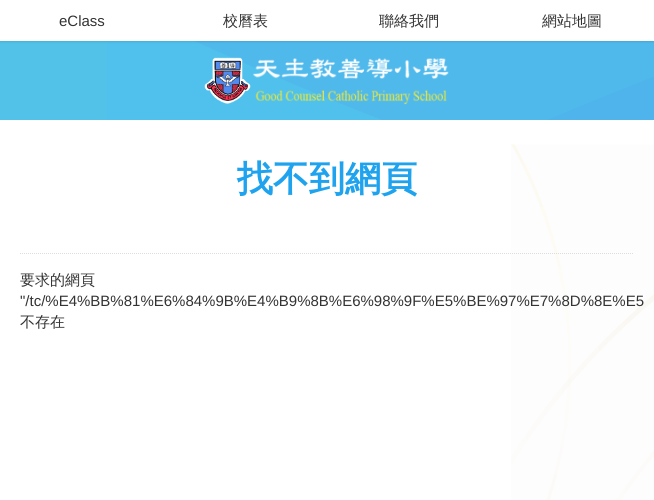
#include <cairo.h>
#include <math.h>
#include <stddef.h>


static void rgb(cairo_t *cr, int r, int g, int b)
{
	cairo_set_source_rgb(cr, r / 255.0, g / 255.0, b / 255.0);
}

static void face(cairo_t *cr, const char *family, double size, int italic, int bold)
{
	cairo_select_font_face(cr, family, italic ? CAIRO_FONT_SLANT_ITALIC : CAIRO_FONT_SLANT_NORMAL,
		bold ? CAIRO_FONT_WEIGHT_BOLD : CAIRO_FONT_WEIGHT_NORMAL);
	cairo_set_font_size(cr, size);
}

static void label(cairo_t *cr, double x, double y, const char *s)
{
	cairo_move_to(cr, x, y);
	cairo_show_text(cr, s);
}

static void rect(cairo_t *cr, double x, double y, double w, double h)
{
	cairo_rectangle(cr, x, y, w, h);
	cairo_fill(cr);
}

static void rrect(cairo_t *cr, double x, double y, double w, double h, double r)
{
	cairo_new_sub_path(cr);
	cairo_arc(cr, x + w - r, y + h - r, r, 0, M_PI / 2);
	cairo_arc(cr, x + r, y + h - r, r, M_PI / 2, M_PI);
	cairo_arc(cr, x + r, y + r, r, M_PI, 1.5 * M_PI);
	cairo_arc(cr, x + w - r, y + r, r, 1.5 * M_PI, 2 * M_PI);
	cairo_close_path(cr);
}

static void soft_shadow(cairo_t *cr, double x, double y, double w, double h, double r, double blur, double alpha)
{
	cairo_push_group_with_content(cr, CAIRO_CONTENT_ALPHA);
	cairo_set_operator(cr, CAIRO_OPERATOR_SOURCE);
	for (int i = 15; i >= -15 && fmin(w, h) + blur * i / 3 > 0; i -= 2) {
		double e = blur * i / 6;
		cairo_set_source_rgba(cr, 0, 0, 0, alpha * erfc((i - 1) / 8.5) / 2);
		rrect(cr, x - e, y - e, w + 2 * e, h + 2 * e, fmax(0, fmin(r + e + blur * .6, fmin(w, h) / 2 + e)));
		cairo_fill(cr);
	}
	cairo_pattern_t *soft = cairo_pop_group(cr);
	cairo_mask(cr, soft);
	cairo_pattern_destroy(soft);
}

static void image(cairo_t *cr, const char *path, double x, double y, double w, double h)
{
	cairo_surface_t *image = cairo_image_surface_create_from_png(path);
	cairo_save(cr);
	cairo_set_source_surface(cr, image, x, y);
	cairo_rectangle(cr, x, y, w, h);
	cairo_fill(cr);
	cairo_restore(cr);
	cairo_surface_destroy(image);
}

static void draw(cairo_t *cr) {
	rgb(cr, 255, 255, 255);
	cairo_paint(cr);
	rgb(cr, 82, 194, 233);
	rect(cr, 0, 41, 654, 79);
	image(cr, "image0.png", 107, 41, 547, 79);
	rgb(cr, 0, 0, 0);
	soft_shadow(cr, 0, 0, 654, 41, 0, 1.5, 0.2);
	rgb(cr, 255, 255, 255);
	rect(cr, 0, 0, 654, 41);
	face(cr, "Liberation Sans", 15, 0, 0);
	rgb(cr, 51, 51, 51);
	label(cr, 59, 26, "eClass");
	face(cr, "WenQuanYi Zen Hei Medium", 15, 0, 0);
	label(cr, 223, 26, "校曆表");
	label(cr, 379, 26, "聯絡我們");
	label(cr, 542, 26, "網站地圖");
	image(cr, "image1.png", 204, 57, 47, 47);
	image(cr, "image2.png", 253, 58, 196, 47);
	image(cr, "image3.png", 511, 144, 143, 356);
	face(cr, "WenQuanYi Zen Hei", 36, 0, 1);
	rgb(cr, 31, 163, 238);
	label(cr, 237, 191, "找不到網頁");
	cairo_new_path(cr);
	cairo_move_to(cr, 20, 253.5);
	cairo_line_to(cr, 634, 253.5);
	rgb(cr, 221, 221, 221);
	cairo_set_line_width(cr, 1);
	cairo_set_dash(cr, (double[]){1, 1}, 2, 0);
	cairo_stroke(cr);
	face(cr, "WenQuanYi Zen Hei Medium", 15, 0, 0);
	rgb(cr, 51, 51, 51);
	label(cr, 20, 285, "要求的網頁");
	face(cr, "Liberation Sans", 15, 0, 0);
	label(cr, 20, 306, "\"/tc/%E4%BB%81%E6%84%9B%E4%B9%8B%E6%98%9F%E5%BE%97%E7%8D%8E%E5");
	face(cr, "WenQuanYi Zen Hei Medium", 15, 0, 0);
	label(cr, 20, 327, "不存在");
}

int main(void) {
	cairo_surface_t *surface = cairo_image_surface_create(CAIRO_FORMAT_RGB24, 654, 500);
	cairo_t *cr = cairo_create(surface);
	cairo_font_options_t *options = cairo_font_options_create();
	cairo_font_options_set_hint_metrics(options, CAIRO_HINT_METRICS_OFF);
	cairo_font_options_set_hint_style(options, CAIRO_HINT_STYLE_NONE);
	cairo_set_font_options(cr, options);
	cairo_set_miter_limit(cr, 4);
	draw(cr);
	cairo_surface_write_to_png(surface, "render.png");
	cairo_font_options_destroy(options);
	cairo_destroy(cr);
	cairo_surface_destroy(surface);
	return 0;
}
